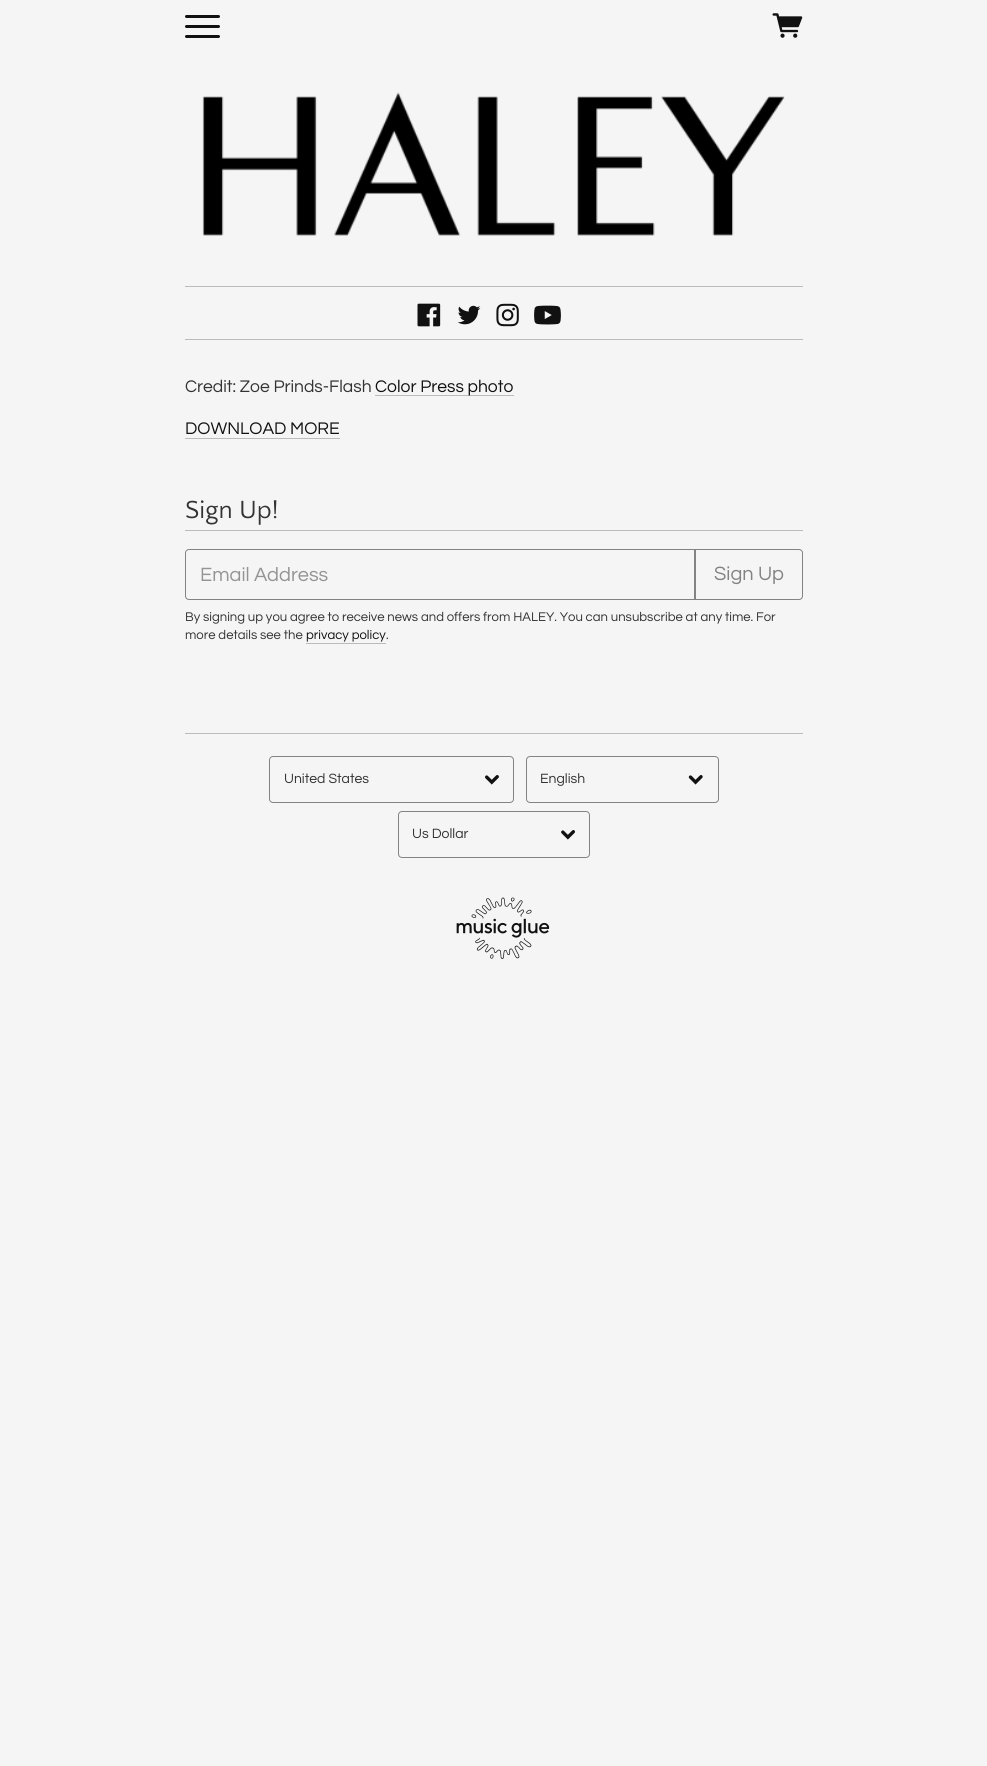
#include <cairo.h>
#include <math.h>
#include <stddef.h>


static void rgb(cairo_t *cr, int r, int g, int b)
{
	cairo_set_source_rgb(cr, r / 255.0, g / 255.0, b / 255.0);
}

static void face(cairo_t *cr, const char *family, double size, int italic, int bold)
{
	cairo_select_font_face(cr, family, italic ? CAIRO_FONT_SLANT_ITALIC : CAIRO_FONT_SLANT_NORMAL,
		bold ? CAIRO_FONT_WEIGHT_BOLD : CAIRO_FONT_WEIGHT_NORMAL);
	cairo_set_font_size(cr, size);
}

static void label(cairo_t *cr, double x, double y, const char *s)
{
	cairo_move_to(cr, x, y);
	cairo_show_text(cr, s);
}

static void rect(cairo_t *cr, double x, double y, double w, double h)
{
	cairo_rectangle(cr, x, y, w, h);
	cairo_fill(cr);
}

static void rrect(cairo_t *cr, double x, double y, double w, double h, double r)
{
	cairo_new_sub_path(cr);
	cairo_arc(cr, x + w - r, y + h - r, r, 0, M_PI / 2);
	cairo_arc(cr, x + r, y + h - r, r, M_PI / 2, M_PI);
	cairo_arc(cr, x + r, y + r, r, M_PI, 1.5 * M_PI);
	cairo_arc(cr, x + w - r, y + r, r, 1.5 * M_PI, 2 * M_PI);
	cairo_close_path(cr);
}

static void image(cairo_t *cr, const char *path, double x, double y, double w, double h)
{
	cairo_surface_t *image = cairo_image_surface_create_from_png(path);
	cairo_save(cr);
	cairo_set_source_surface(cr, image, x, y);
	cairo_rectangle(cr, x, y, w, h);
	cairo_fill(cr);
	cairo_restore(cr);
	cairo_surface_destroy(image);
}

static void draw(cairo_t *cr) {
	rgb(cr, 245, 245, 245);
	cairo_paint(cr);
	rgb(cr, 17, 17, 17);
	rrect(cr, 185, 15, 35, 3, 1.5);
	cairo_fill(cr);
	rrect(cr, 185, 25, 35, 3, 1.5);
	cairo_fill(cr);
	rrect(cr, 185, 35, 35, 3, 1.5);
	cairo_fill(cr);
	image(cr, "image0.png", 772, 13, 31, 25);
	image(cr, "image1.png", 202, 92, 583, 144);
	rgb(cr, 187, 187, 187);
	rect(cr, 185, 286, 618, 1);
	rect(cr, 185, 339, 618, 1);
	image(cr, "image2.png", 417, 303, 24, 24);
	image(cr, "image3.png", 457, 305, 24, 20);
	image(cr, "image4.png", 496, 303, 23, 24);
	image(cr, "image5.png", 534, 305, 27, 20);
	face(cr, "Questrial", 17.5, 0, 0);
	rgb(cr, 51, 51, 51);
	label(cr, 185, 392, "Credit: Zoe Prinds-Flash");
	rgb(cr, 187, 187, 187);
	rect(cr, 375, 395, 139, 1);
	rgb(cr, 17, 17, 17);
	label(cr, 375, 392, "Color Press photo");
	label(cr, 185, 434, "DOWNLOAD MORE");
	rgb(cr, 187, 187, 187);
	rect(cr, 185, 438, 155, 1);
	rect(cr, 185, 530, 618, 1);
	face(cr, "Quattrocento Sans", 26, 0, 0);
	rgb(cr, 51, 51, 51);
	label(cr, 185, 518, "Sign Up!");
	cairo_new_path(cr);
	cairo_move_to(cr, 189, 549.5);
	cairo_line_to(cr, 694.5, 549.5);
	cairo_line_to(cr, 694.5, 599.5);
	cairo_line_to(cr, 189, 599.5);
	cairo_curve_to(cr, 187, 599.5, 185.5, 598, 185.5, 596);
	cairo_line_to(cr, 185.5, 553);
	cairo_curve_to(cr, 185.5, 551, 187, 549.5, 189, 549.5);
	cairo_close_path(cr);
	rgb(cr, 131, 131, 131);
	cairo_set_line_width(cr, 1);
	cairo_stroke(cr);
	face(cr, "Questrial", 20, 0, 0);
	rgb(cr, 148, 148, 148);
	label(cr, 200, 581, "Email Address");
	cairo_new_path(cr);
	cairo_move_to(cr, 695.5, 549.5);
	cairo_line_to(cr, 799, 549.5);
	cairo_curve_to(cr, 801, 549.5, 802.5, 551, 802.5, 553);
	cairo_line_to(cr, 802.5, 596);
	cairo_curve_to(cr, 802.5, 598, 801, 599.5, 799, 599.5);
	cairo_line_to(cr, 695.5, 599.5);
	cairo_close_path(cr);
	rgb(cr, 131, 131, 131);
	cairo_stroke(cr);
	label(cr, 714, 580, "Sign Up");
	face(cr, "Questrial", 13.1, 0, 0);
	rgb(cr, 51, 51, 51);
	label(cr, 185, 621, "By signing up you agree to receive news and offers from HALEY. You can unsubscribe at any time. For");
	label(cr, 185, 639, "more details see the");
	rgb(cr, 17, 17, 17);
	label(cr, 306, 639, "privacy policy");
	rgb(cr, 187, 187, 187);
	rect(cr, 306, 643, 80, 1);
	rgb(cr, 51, 51, 51);
	label(cr, 386, 639, ".");
	rgb(cr, 187, 187, 187);
	rect(cr, 185, 733, 618, 1);
	rrect(cr, 269.5, 756.5, 244, 46, 3.5);
	rgb(cr, 131, 131, 131);
	cairo_stroke(cr);
	face(cr, "Questrial", 14, 0, 0);
	rgb(cr, 51, 51, 51);
	label(cr, 284, 783, "United States");
	image(cr, "image6.png", 485, 775, 14, 10);
	rrect(cr, 526.5, 756.5, 192, 46, 3.5);
	rgb(cr, 131, 131, 131);
	cairo_stroke(cr);
	rgb(cr, 51, 51, 51);
	label(cr, 540, 783, "English");
	image(cr, "image7.png", 688, 775, 15, 10);
	rrect(cr, 398.5, 811.5, 191, 46, 3.5);
	rgb(cr, 131, 131, 131);
	cairo_stroke(cr);
	cairo_save(cr);
	cairo_rectangle(cr, 413, 825, 148, 19);
	cairo_clip(cr);
	rgb(cr, 51, 51, 51);
	label(cr, 412, 838, "Us Dollar");
	cairo_restore(cr);
	image(cr, "image8.png", 561, 830, 14, 10);
	image(cr, "image9.png", 456, 897, 94, 62);
}

int main(void) {
	cairo_surface_t *surface = cairo_image_surface_create(CAIRO_FORMAT_RGB24, 987, 1766);
	cairo_t *cr = cairo_create(surface);
	cairo_font_options_t *options = cairo_font_options_create();
	cairo_font_options_set_hint_metrics(options, CAIRO_HINT_METRICS_OFF);
	cairo_font_options_set_hint_style(options, CAIRO_HINT_STYLE_NONE);
	cairo_set_font_options(cr, options);
	cairo_set_miter_limit(cr, 4);
	draw(cr);
	cairo_surface_write_to_png(surface, "render.png");
	cairo_font_options_destroy(options);
	cairo_destroy(cr);
	cairo_surface_destroy(surface);
	return 0;
}
